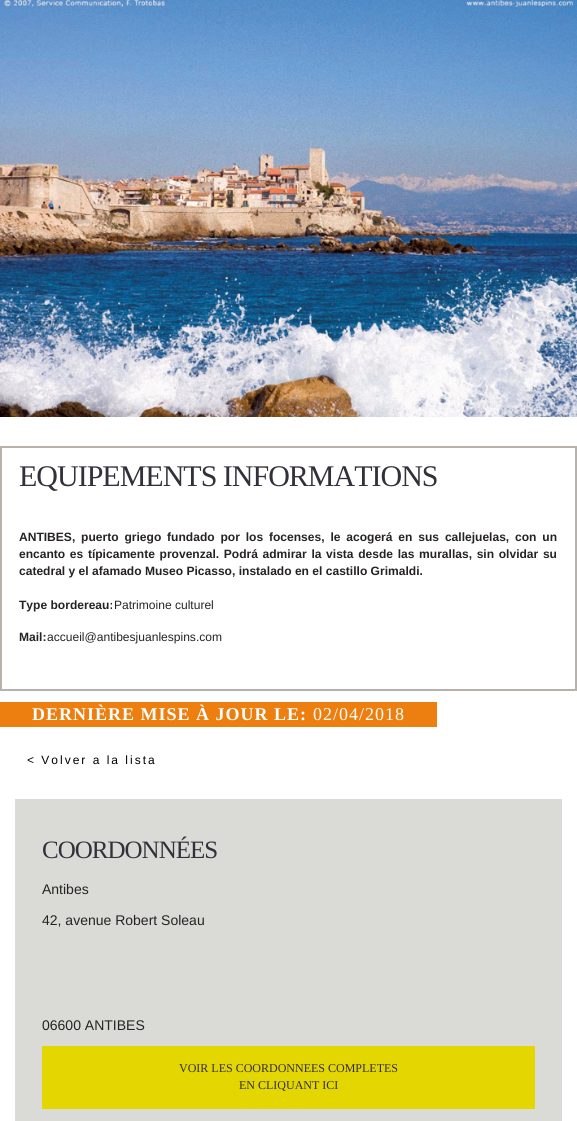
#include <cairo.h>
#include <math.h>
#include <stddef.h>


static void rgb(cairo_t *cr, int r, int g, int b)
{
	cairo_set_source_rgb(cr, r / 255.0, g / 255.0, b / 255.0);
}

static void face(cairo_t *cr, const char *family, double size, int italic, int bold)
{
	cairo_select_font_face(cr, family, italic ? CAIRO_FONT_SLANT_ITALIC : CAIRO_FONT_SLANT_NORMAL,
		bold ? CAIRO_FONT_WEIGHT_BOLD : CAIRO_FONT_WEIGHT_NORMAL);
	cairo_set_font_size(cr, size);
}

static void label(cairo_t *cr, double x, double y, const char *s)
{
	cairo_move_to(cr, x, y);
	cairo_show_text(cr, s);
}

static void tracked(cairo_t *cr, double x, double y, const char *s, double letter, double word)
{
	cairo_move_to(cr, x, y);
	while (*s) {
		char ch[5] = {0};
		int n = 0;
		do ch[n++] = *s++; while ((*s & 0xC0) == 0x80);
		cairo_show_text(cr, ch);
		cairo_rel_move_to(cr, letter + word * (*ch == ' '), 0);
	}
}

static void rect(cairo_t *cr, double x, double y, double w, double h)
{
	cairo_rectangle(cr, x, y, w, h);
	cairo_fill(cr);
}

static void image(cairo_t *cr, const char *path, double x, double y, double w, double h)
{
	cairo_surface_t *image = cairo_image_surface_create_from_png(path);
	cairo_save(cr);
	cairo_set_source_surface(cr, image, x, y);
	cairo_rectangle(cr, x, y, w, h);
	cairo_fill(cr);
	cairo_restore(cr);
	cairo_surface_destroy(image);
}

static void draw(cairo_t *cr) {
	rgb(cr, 255, 255, 255);
	cairo_paint(cr);
	image(cr, "image0.png", 0, 0, 577, 417);
	cairo_rectangle(cr, 1, 447, 575, 243);
	rgb(cr, 182, 177, 171);
	cairo_stroke(cr);
	face(cr, "Liberation Serif", 30, 0, 0);
	rgb(cr, 51, 47, 59);
	tracked(cr, 19, 486, "EQUIPEMENTS INFORMATIONS", -1, 0);
	face(cr, "Liberation Sans", 12.05, 0, 1);
	rgb(cr, 38, 35, 34);
	tracked(cr, 19, 541, "ANTIBES, puerto griego fundado por los focenses, le acogerá en sus callejuelas, con un", 0, 2.5);
	tracked(cr, 19, 558, "encanto es típicamente provenzal. Podrá admirar la vista desde las murallas, sin olvidar su", 0, 1.3);
	label(cr, 19, 575, "catedral y el afamado Museo Picasso, instalado en el castillo Grimaldi.");
	label(cr, 19, 609, "Type bordereau:");
	face(cr, "Liberation Sans", 12.05, 0, 0);
	label(cr, 114, 609, "Patrimoine culturel");
	face(cr, "Liberation Sans", 12.05, 0, 1);
	label(cr, 19, 641, "Mail:");
	face(cr, "Liberation Sans", 12.05, 0, 0);
	label(cr, 47, 641, "accueil@antibesjuanlespins.com");
	rgb(cr, 237, 127, 16);
	rect(cr, 0, 702, 437, 25);
	face(cr, "Liberation Serif", 18, 0, 1);
	rgb(cr, 255, 255, 255);
	tracked(cr, 32, 720, "DERNIÈRE MISE À JOUR LE:", 1, 0);
	face(cr, "Liberation Serif", 18, 0, 0);
	tracked(cr, 313, 720, "02/04/2018", 1, 0);
	face(cr, "Liberation Sans", 12, 0, 0);
	rgb(cr, 0, 0, 0);
	tracked(cr, 27, 764, "< Volver a la lista", 2, 0);
	rgb(cr, 218, 218, 214);
	rect(cr, 15, 799, 547, 322);
	face(cr, "Liberation Serif", 25, 0, 0);
	rgb(cr, 51, 47, 59);
	tracked(cr, 42, 858, "COORDONNÉES", -1, 0);
	face(cr, "Liberation Sans", 14, 0, 0);
	rgb(cr, 38, 35, 34);
	label(cr, 42, 894, "Antibes");
	label(cr, 42, 925, "42, avenue Robert Soleau");
	label(cr, 42, 1030, "06600 ANTIBES");
	rgb(cr, 228, 214, 1);
	rect(cr, 42, 1046, 493, 63);
	face(cr, "Liberation Serif", 12, 0, 0);
	rgb(cr, 51, 47, 59);
	label(cr, 179, 1072, "VOIR LES COORDONNEES COMPLETES");
	label(cr, 239, 1089, "EN CLIQUANT ICI");
}

int main(void) {
	cairo_surface_t *surface = cairo_image_surface_create(CAIRO_FORMAT_RGB24, 577, 1121);
	cairo_t *cr = cairo_create(surface);
	cairo_font_options_t *options = cairo_font_options_create();
	cairo_font_options_set_hint_metrics(options, CAIRO_HINT_METRICS_OFF);
	cairo_font_options_set_hint_style(options, CAIRO_HINT_STYLE_NONE);
	cairo_set_font_options(cr, options);
	cairo_set_miter_limit(cr, 4);
	draw(cr);
	cairo_surface_write_to_png(surface, "render.png");
	cairo_font_options_destroy(options);
	cairo_destroy(cr);
	cairo_surface_destroy(surface);
	return 0;
}
